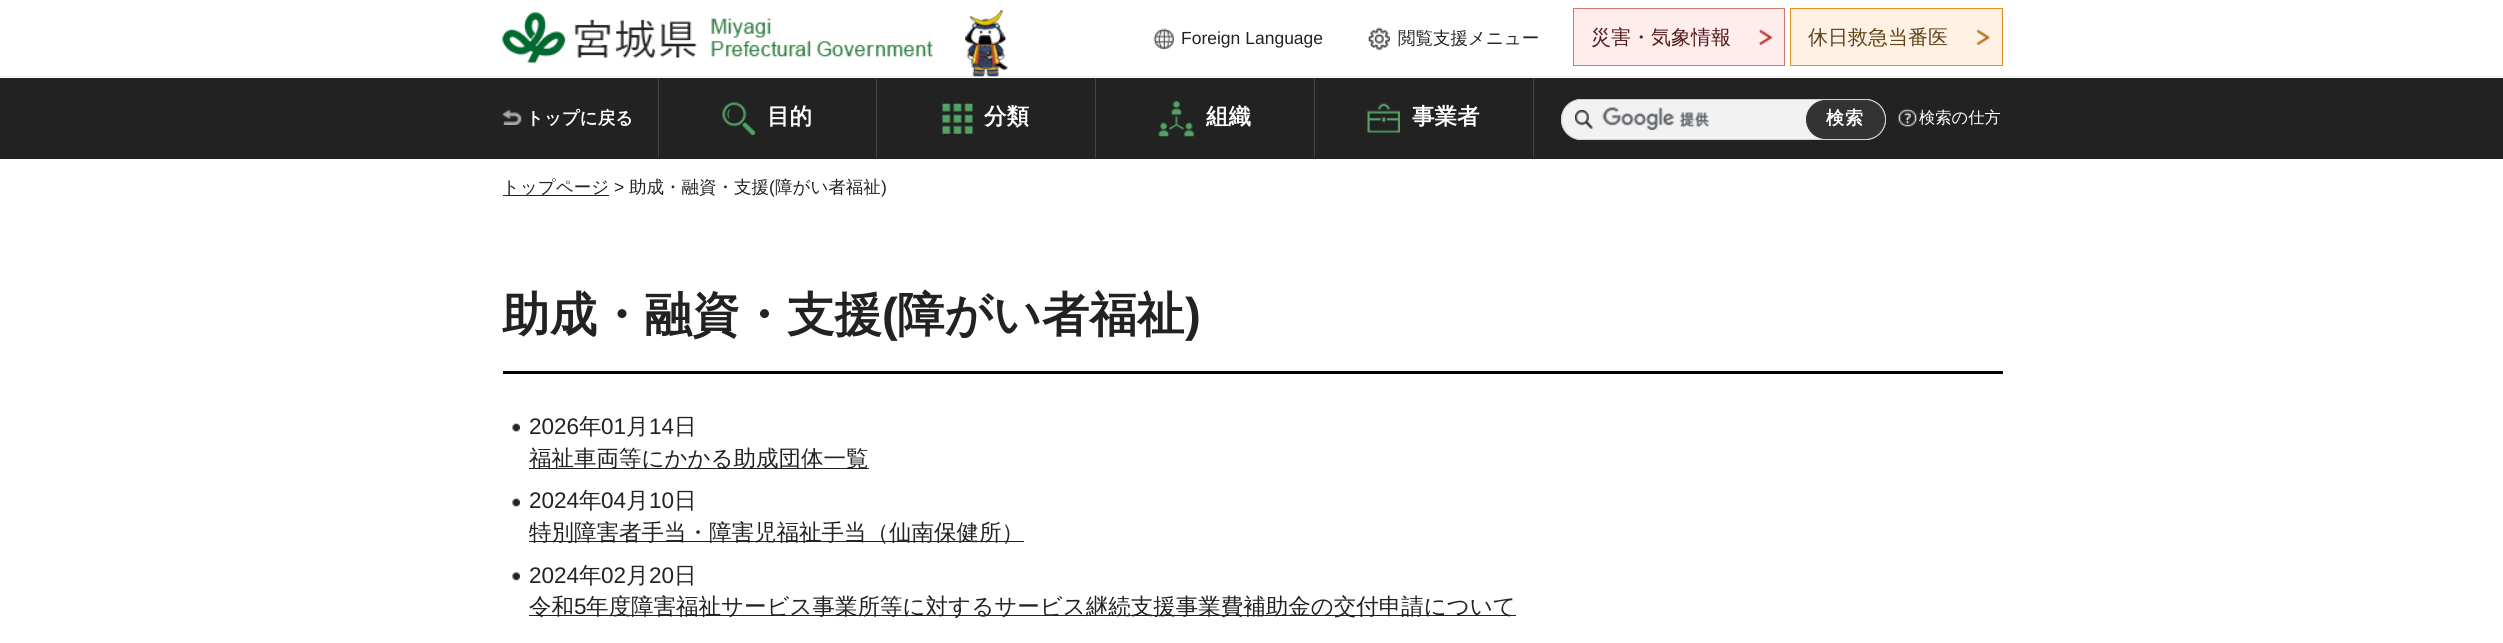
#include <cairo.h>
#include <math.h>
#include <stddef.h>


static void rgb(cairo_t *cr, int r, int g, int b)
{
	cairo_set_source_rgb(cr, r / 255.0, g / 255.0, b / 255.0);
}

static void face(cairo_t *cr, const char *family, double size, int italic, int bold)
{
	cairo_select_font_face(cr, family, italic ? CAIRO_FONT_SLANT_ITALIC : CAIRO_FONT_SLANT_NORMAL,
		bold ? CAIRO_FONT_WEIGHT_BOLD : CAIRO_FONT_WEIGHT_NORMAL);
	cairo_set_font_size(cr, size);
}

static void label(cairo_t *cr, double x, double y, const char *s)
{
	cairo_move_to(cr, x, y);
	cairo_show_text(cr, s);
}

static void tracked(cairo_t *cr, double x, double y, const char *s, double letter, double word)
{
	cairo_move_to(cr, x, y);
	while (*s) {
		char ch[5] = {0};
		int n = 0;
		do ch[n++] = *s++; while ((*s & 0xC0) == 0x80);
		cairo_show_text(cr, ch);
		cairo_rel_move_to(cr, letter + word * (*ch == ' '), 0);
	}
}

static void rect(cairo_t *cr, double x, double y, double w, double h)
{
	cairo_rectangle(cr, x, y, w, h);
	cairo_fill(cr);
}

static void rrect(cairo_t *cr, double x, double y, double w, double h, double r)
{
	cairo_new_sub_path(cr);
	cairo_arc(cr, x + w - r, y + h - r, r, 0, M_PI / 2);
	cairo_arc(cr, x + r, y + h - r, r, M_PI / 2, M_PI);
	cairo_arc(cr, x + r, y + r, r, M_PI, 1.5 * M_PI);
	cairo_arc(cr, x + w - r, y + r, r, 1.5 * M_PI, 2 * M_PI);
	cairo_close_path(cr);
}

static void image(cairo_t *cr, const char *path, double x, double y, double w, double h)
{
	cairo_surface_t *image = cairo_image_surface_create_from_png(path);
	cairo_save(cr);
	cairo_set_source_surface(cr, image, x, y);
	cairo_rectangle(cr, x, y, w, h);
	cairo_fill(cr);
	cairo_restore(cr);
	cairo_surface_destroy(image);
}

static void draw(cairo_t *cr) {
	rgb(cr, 255, 255, 255);
	cairo_paint(cr);
	rgb(cr, 236, 236, 236);
	rect(cr, 0, 76, 2503, 1);
	image(cr, "image0.png", 502, 12, 431, 51);
	image(cr, "image1.png", 965, 10, 43, 67);
	image(cr, "image2.png", 1153, 28, 21, 21);
	face(cr, "Liberation Sans", 17.5, 0, 0);
	rgb(cr, 34, 34, 34);
	label(cr, 1181, 44, "Foreign Language");
	image(cr, "image3.png", 1368, 27, 22, 23);
	face(cr, "WenQuanYi Zen Hei Medium", 17.5, 0, 0);
	label(cr, 1398, 44, "閲覧支援メニュー");
	rgb(cr, 255, 236, 236);
	cairo_rectangle(cr, 1573.5, 8.5, 211, 57);
	cairo_fill_preserve(cr);
	rgb(cr, 205, 121, 112);
	cairo_set_line_width(cr, 1);
	cairo_stroke(cr);
	face(cr, "WenQuanYi Zen Hei Medium", 20, 0, 0);
	rgb(cr, 83, 27, 27);
	label(cr, 1591, 44, "災害・気象情報");
	image(cr, "image4.png", 1758, 29, 15, 16);
	rgb(cr, 255, 242, 229);
	cairo_rectangle(cr, 1790.5, 8.5, 212, 57);
	cairo_fill_preserve(cr);
	rgb(cr, 225, 143, 26);
	cairo_stroke(cr);
	rgb(cr, 94, 65, 24);
	label(cr, 1808, 44, "休日救急当番医");
	image(cr, "image5.png", 1976, 29, 14, 16);
	rgb(cr, 34, 34, 34);
	rect(cr, 0, 78, 2503, 81);
	rgb(cr, 67, 67, 67);
	rect(cr, 658, 78, 1, 80);
	image(cr, "image6.png", 502, 110, 20, 15);
	face(cr, "WenQuanYi Zen Hei", 17.5, 0, 1);
	rgb(cr, 255, 255, 255);
	label(cr, 526, 124, "トップに戻る");
	rgb(cr, 67, 67, 67);
	rect(cr, 876, 78, 1, 80);
	image(cr, "image7.png", 722, 102, 33, 33);
	face(cr, "WenQuanYi Zen Hei", 22.5, 0, 1);
	rgb(cr, 255, 255, 255);
	label(cr, 767, 124, "目的");
	rgb(cr, 67, 67, 67);
	rect(cr, 1095, 78, 1, 80);
	image(cr, "image8.png", 942, 103, 31, 31);
	rgb(cr, 255, 255, 255);
	label(cr, 984, 124, "分類");
	rgb(cr, 67, 67, 67);
	rect(cr, 1314, 78, 1, 80);
	image(cr, "image9.png", 1158, 101, 36, 36);
	rgb(cr, 255, 255, 255);
	label(cr, 1206, 124, "組織");
	rgb(cr, 67, 67, 67);
	rect(cr, 1533, 78, 1, 80);
	image(cr, "image10.png", 1367, 103, 33, 30);
	rgb(cr, 255, 255, 255);
	label(cr, 1412, 124, "事業者");
	rgb(cr, 242, 242, 242);
	rrect(cr, 1561, 99, 325, 41, 20.5);
	cairo_fill(cr);
	image(cr, "image11.png", 1602, 107, 107, 23);
	rrect(cr, 1561.5, 99.5, 324, 40, 20);
	rgb(cr, 211, 211, 211);
	cairo_stroke(cr);
	image(cr, "image12.png", 1575, 110, 18, 19);
	rgb(cr, 51, 51, 51);
	rrect(cr, 1806.5, 100.5, 78, 38, 19);
	cairo_fill_preserve(cr);
	cairo_stroke(cr);
	face(cr, "WenQuanYi Zen Hei", 18, 0, 1);
	rgb(cr, 255, 255, 255);
	tracked(cr, 1826, 124, "検索", 1, 0);
	image(cr, "image13.png", 1897, 108, 21, 19);
	face(cr, "WenQuanYi Zen Hei Medium", 16.25, 0, 0);
	label(cr, 1919, 123, "検索の仕方");
	rgb(cr, 34, 34, 34);
	rect(cr, 503, 195, 106, 1);
	face(cr, "WenQuanYi Zen Hei Medium", 17.5, 0, 0);
	label(cr, 502, 193, "トップページ");
	face(cr, "Liberation Sans", 17.5, 0, 0);
	label(cr, 614, 193, ">");
	face(cr, "WenQuanYi Zen Hei Medium", 17.5, 0, 0);
	label(cr, 629, 193, "助成・融資・支援");
	face(cr, "Liberation Sans", 17.5, 0, 0);
	label(cr, 769, 193, "(");
	face(cr, "WenQuanYi Zen Hei Medium", 17.5, 0, 0);
	label(cr, 775, 193, "障がい者福祉");
	face(cr, "Liberation Sans", 17.5, 0, 0);
	label(cr, 881, 193, ")");
	rgb(cr, 0, 0, 0);
	rect(cr, 503, 371, 1500, 3);
	face(cr, "WenQuanYi Zen Hei", 47.5, 0, 1);
	rgb(cr, 34, 34, 34);
	label(cr, 502, 331, "助成・融資・支援");
	face(cr, "Liberation Sans", 47.5, 0, 1);
	label(cr, 882, 331, "(");
	face(cr, "WenQuanYi Zen Hei", 47.5, 0, 1);
	label(cr, 897, 331, "障がい者福祉");
	face(cr, "Liberation Sans", 47.5, 0, 1);
	label(cr, 1185, 331, ")");
	image(cr, "image14.png", 512, 423, 8, 9);
	face(cr, "Liberation Sans", 22.5, 0, 0);
	label(cr, 529, 434, "2026");
	face(cr, "WenQuanYi Zen Hei Medium", 22.5, 0, 0);
	label(cr, 579, 434, "年");
	face(cr, "Liberation Sans", 22.5, 0, 0);
	label(cr, 601, 434, "01");
	face(cr, "WenQuanYi Zen Hei Medium", 22.5, 0, 0);
	label(cr, 626, 434, "月");
	face(cr, "Liberation Sans", 22.5, 0, 0);
	label(cr, 649, 434, "14");
	face(cr, "WenQuanYi Zen Hei Medium", 22.5, 0, 0);
	label(cr, 674, 434, "日");
	rect(cr, 529, 468, 340, 1);
	label(cr, 529, 466, "福祉車両等にかかる助成団体一覧");
	image(cr, "image14.png", 512, 498, 8, 9);
	face(cr, "Liberation Sans", 22.5, 0, 0);
	label(cr, 529, 508, "2024");
	face(cr, "WenQuanYi Zen Hei Medium", 22.5, 0, 0);
	label(cr, 579, 508, "年");
	face(cr, "Liberation Sans", 22.5, 0, 0);
	label(cr, 601, 508, "04");
	face(cr, "WenQuanYi Zen Hei Medium", 22.5, 0, 0);
	label(cr, 626, 508, "月");
	face(cr, "Liberation Sans", 22.5, 0, 0);
	label(cr, 649, 508, "10");
	face(cr, "WenQuanYi Zen Hei Medium", 22.5, 0, 0);
	label(cr, 674, 508, "日");
	rect(cr, 529, 541, 495, 1);
	label(cr, 529, 540, "特別障害者手当・障害児福祉手当（仙南保健所）");
	image(cr, "image15.png", 512, 572, 8, 9);
	face(cr, "Liberation Sans", 22.5, 0, 0);
	label(cr, 529, 583, "2024");
	face(cr, "WenQuanYi Zen Hei Medium", 22.5, 0, 0);
	label(cr, 579, 583, "年");
	face(cr, "Liberation Sans", 22.5, 0, 0);
	label(cr, 601, 583, "02");
	face(cr, "WenQuanYi Zen Hei Medium", 22.5, 0, 0);
	label(cr, 626, 583, "月");
	face(cr, "Liberation Sans", 22.5, 0, 0);
	label(cr, 649, 583, "20");
	face(cr, "WenQuanYi Zen Hei Medium", 22.5, 0, 0);
	label(cr, 674, 583, "日");
	rect(cr, 529, 615, 987, 1);
	label(cr, 529, 614, "令和");
	face(cr, "Liberation Sans", 22.5, 0, 0);
	label(cr, 574, 614, "5");
	face(cr, "WenQuanYi Zen Hei Medium", 22.5, 0, 0);
	label(cr, 586, 614, "年度障害福祉サービス事業所等に対するサービス継続支援事業費補助金の交付申請について");
}

int main(void) {
	cairo_surface_t *surface = cairo_image_surface_create(CAIRO_FORMAT_RGB24, 2503, 643);
	cairo_t *cr = cairo_create(surface);
	cairo_font_options_t *options = cairo_font_options_create();
	cairo_font_options_set_hint_metrics(options, CAIRO_HINT_METRICS_OFF);
	cairo_font_options_set_hint_style(options, CAIRO_HINT_STYLE_NONE);
	cairo_set_font_options(cr, options);
	cairo_set_miter_limit(cr, 4);
	draw(cr);
	cairo_surface_write_to_png(surface, "render.png");
	cairo_font_options_destroy(options);
	cairo_destroy(cr);
	cairo_surface_destroy(surface);
	return 0;
}
